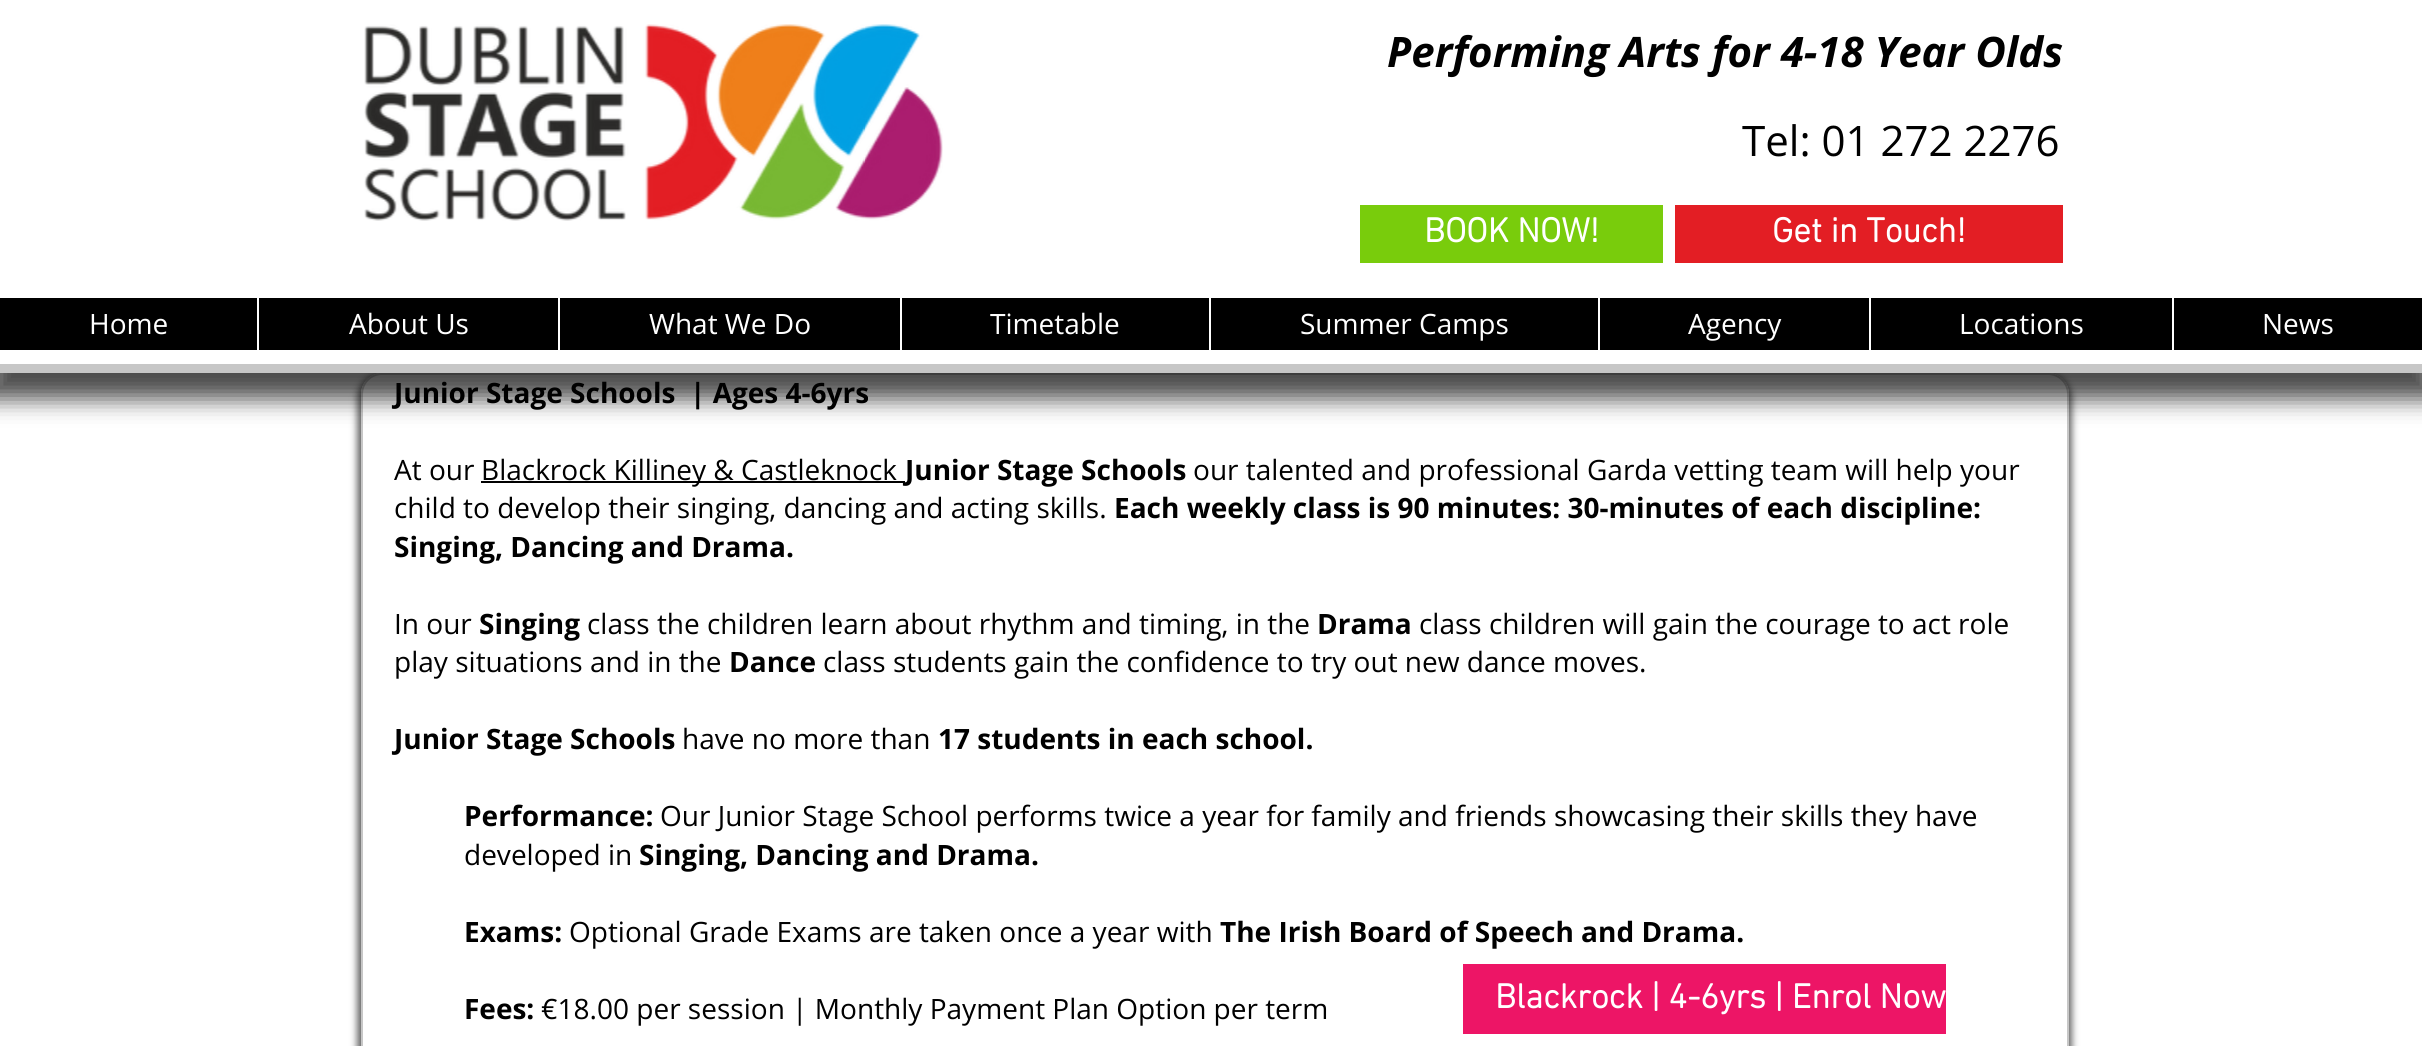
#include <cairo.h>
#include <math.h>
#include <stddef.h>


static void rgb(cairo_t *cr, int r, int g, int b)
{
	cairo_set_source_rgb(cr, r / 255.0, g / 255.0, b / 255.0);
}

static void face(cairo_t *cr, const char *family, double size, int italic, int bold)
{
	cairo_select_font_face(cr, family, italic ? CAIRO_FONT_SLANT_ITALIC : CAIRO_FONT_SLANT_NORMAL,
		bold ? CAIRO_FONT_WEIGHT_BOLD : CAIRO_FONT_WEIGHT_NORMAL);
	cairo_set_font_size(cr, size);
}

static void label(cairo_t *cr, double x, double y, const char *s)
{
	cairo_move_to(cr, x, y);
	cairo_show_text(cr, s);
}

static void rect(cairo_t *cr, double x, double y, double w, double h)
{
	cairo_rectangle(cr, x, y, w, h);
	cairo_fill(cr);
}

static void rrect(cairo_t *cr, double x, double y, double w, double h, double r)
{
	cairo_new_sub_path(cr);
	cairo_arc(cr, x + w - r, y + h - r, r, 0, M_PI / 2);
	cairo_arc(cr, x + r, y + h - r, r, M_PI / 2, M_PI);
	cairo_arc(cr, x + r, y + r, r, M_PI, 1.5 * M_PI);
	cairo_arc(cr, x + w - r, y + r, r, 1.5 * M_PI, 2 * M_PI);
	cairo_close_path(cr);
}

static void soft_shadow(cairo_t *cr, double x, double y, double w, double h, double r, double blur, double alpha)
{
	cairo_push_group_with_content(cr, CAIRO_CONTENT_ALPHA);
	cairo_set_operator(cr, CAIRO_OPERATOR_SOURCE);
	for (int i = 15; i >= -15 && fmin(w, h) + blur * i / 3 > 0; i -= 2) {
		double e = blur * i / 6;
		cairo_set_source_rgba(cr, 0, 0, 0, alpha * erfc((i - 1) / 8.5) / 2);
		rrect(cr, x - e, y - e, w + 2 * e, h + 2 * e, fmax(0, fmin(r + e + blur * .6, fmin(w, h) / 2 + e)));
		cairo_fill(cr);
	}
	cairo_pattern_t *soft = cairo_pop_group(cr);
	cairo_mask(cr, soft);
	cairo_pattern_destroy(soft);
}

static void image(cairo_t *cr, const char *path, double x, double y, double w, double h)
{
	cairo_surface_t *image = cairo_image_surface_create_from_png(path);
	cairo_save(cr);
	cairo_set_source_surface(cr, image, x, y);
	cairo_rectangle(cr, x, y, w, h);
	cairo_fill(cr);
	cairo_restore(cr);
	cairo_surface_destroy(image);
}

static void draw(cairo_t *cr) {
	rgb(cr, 255, 255, 255);
	cairo_paint(cr);
	cairo_save(cr);
	cairo_set_fill_rule(cr, CAIRO_FILL_RULE_EVEN_ODD);
	cairo_new_path(cr);
	cairo_move_to(cr, 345, 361);
	cairo_line_to(cr, 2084, 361);
	cairo_line_to(cr, 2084, 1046);
	cairo_line_to(cr, 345, 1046);
	cairo_close_path(cr);
	cairo_move_to(cr, 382, 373);
	cairo_line_to(cr, 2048, 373);
	cairo_curve_to(cr, 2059.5, 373, 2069, 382.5, 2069, 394);
	cairo_line_to(cr, 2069, 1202);
	cairo_curve_to(cr, 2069, 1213.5, 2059.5, 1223, 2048, 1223);
	cairo_line_to(cr, 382, 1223);
	cairo_curve_to(cr, 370.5, 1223, 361, 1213.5, 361, 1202);
	cairo_line_to(cr, 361, 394);
	cairo_curve_to(cr, 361, 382.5, 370.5, 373, 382, 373);
	cairo_close_path(cr);
	cairo_clip(cr);
	rgb(cr, 0, 0, 0);
	soft_shadow(cr, 357, 373, 1715, 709, 25, 3.5, 0.6);
	cairo_restore(cr);
	cairo_set_source_rgba(cr, 1, 1, 1, 0.16);
	rrect(cr, 362, 374, 1706, 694, 20);
	cairo_fill_preserve(cr);
	rgb(cr, 199, 199, 199);
	cairo_stroke(cr);
	rgb(cr, 0, 0, 0);
	soft_shadow(cr, -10, 5, 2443, 394, 0, 11.5, 0.7);
	rgb(cr, 255, 255, 255);
	rect(cr, 0, 0, 2422, 364);
	rgb(cr, 199, 199, 199);
	rect(cr, 0, 364, 2422, 9);
	image(cr, "image0.png", 364, 24, 579, 197);
	face(cr, "Open Sans", 42, 1, 1);
	rgb(cr, 0, 0, 0);
	label(cr, 1387, 67, "Performing Arts for 4-18 Year Olds");
	face(cr, "Open Sans", 42, 0, 0);
	label(cr, 1742, 156, "Tel: 01 272 2276");
	rgb(cr, 121, 204, 12);
	rect(cr, 1360, 205, 303, 58);
	face(cr, "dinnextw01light", 35, 0, 1);
	rgb(cr, 255, 255, 255);
	label(cr, 1424, 242, "BOOK NOW!");
	rgb(cr, 227, 30, 36);
	rect(cr, 1675, 205, 388, 58);
	rgb(cr, 255, 255, 255);
	label(cr, 1772, 242, "Get in Touch!");
	rgb(cr, 0, 0, 0);
	rect(cr, 0, 298, 2422, 52);
	face(cr, "Open Sans", 28, 0, 0);
	rgb(cr, 255, 255, 255);
	label(cr, 89, 334, "Home");
	rect(cr, 257, 298, 2, 52);
	label(cr, 349, 334, "About Us");
	rect(cr, 558, 298, 2, 52);
	label(cr, 649, 334, "What We Do");
	rect(cr, 900, 298, 2, 52);
	label(cr, 990, 334, "Timetable");
	rect(cr, 1209, 298, 2, 52);
	label(cr, 1300, 334, "Summer Camps");
	rect(cr, 1598, 298, 2, 52);
	label(cr, 1688, 334, "Agency");
	rect(cr, 1869, 298, 2, 52);
	label(cr, 1959, 334, "Locations");
	rect(cr, 2172, 298, 2, 52);
	label(cr, 2262, 334, "News");
	face(cr, "Open Sans", 28, 0, 1);
	rgb(cr, 0, 0, 0);
	label(cr, 394, 403, "Junior Stage Schools  | Ages 4-6yrs");
	face(cr, "Open Sans", 28, 0, 0);
	label(cr, 394, 480, "At our");
	rect(cr, 481, 481, 424, 2);
	label(cr, 481, 480, "Blackrock Killiney & Castleknock");
	face(cr, "Open Sans", 28, 0, 1);
	label(cr, 905, 480, "Junior Stage Schools");
	face(cr, "Open Sans", 28, 0, 0);
	label(cr, 1193, 480, "our talented and professional Garda vetting team will help your");
	label(cr, 394, 518, "child to develop their singing, dancing and acting skills.");
	face(cr, "Open Sans", 28, 0, 1);
	label(cr, 1114, 518, "Each weekly class is 90 minutes: 30-minutes of each discipline:");
	label(cr, 394, 557, "Singing, Dancing and Drama.");
	face(cr, "Open Sans", 28, 0, 0);
	label(cr, 394, 634, "In our");
	face(cr, "Open Sans", 28, 0, 1);
	label(cr, 479, 634, "Singing");
	face(cr, "Open Sans", 28, 0, 0);
	label(cr, 587, 634, "class the children learn about rhythm and timing, in the");
	face(cr, "Open Sans", 28, 0, 1);
	label(cr, 1317, 634, "Drama");
	face(cr, "Open Sans", 28, 0, 0);
	label(cr, 1419, 634, "class children will gain the courage to act role");
	label(cr, 394, 672, "play situations and in the");
	face(cr, "Open Sans", 28, 0, 1);
	label(cr, 729, 672, "Dance");
	face(cr, "Open Sans", 28, 0, 0);
	label(cr, 823, 672, "class students gain the confidence to try out new dance moves.");
	face(cr, "Open Sans", 28, 0, 1);
	label(cr, 394, 749, "Junior Stage Schools");
	face(cr, "Open Sans", 28, 0, 0);
	label(cr, 682, 749, "have no more than");
	face(cr, "Open Sans", 28, 0, 1);
	label(cr, 938, 749, "17 students in each school.");
	label(cr, 464, 826, "Performance:");
	face(cr, "Open Sans", 28, 0, 0);
	label(cr, 660, 826, "Our Junior Stage School performs twice a year for family and friends showcasing their skills they have");
	label(cr, 464, 865, "developed in");
	face(cr, "Open Sans", 28, 0, 1);
	label(cr, 639, 865, "Singing, Dancing and Drama.");
	label(cr, 464, 942, "Exams:");
	face(cr, "Open Sans", 28, 0, 0);
	label(cr, 569, 942, "Optional Grade Exams are taken once a year with");
	face(cr, "Open Sans", 28, 0, 1);
	label(cr, 1220, 942, "The Irish Board of Speech and Drama.");
	label(cr, 464, 1019, "Fees:");
	face(cr, "Open Sans", 28, 0, 0);
	label(cr, 541, 1019, "€18.00 per session | Monthly Payment Plan Option per term");
	rgb(cr, 237, 21, 102);
	rect(cr, 1463, 964, 483, 70);
	face(cr, "dinnextw01light", 35, 0, 1);
	rgb(cr, 255, 255, 255);
	label(cr, 1495, 1008, "Blackrock | 4-6yrs | Enrol Now");
}

int main(void) {
	cairo_surface_t *surface = cairo_image_surface_create(CAIRO_FORMAT_RGB24, 2422, 1046);
	cairo_t *cr = cairo_create(surface);
	cairo_font_options_t *options = cairo_font_options_create();
	cairo_font_options_set_hint_metrics(options, CAIRO_HINT_METRICS_OFF);
	cairo_font_options_set_hint_style(options, CAIRO_HINT_STYLE_NONE);
	cairo_set_font_options(cr, options);
	cairo_set_miter_limit(cr, 4);
	draw(cr);
	cairo_surface_write_to_png(surface, "render.png");
	cairo_font_options_destroy(options);
	cairo_destroy(cr);
	cairo_surface_destroy(surface);
	return 0;
}
